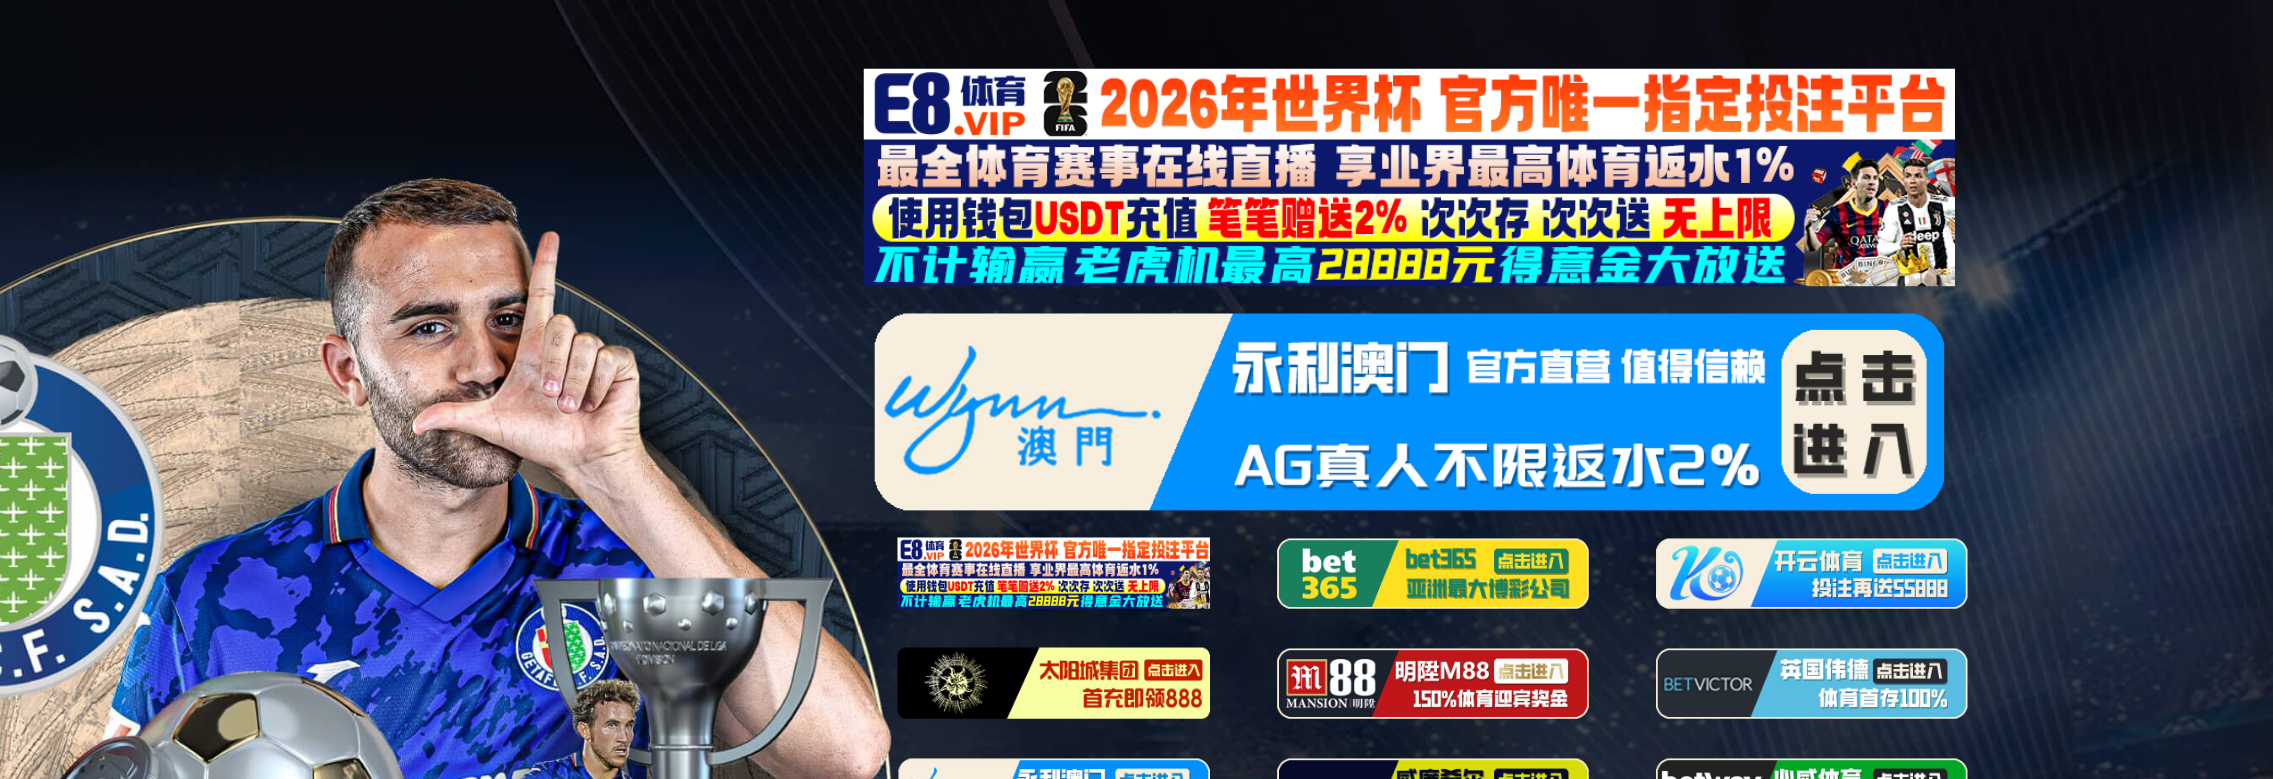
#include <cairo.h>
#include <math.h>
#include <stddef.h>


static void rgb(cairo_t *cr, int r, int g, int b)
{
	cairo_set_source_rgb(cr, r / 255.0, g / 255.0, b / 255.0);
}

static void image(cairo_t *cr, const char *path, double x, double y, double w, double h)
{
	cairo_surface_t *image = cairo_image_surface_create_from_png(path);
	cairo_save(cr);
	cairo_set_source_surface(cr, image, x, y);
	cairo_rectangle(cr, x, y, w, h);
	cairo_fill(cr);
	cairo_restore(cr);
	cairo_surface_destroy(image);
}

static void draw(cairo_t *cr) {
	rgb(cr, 255, 255, 255);
	cairo_paint(cr);
	image(cr, "image0.png", 0, 0, 2273, 779);
}

int main(void) {
	cairo_surface_t *surface = cairo_image_surface_create(CAIRO_FORMAT_RGB24, 2273, 779);
	cairo_t *cr = cairo_create(surface);
	cairo_font_options_t *options = cairo_font_options_create();
	cairo_font_options_set_hint_metrics(options, CAIRO_HINT_METRICS_OFF);
	cairo_font_options_set_hint_style(options, CAIRO_HINT_STYLE_NONE);
	cairo_set_font_options(cr, options);
	cairo_set_miter_limit(cr, 4);
	draw(cr);
	cairo_surface_write_to_png(surface, "render.png");
	cairo_font_options_destroy(options);
	cairo_destroy(cr);
	cairo_surface_destroy(surface);
	return 0;
}
